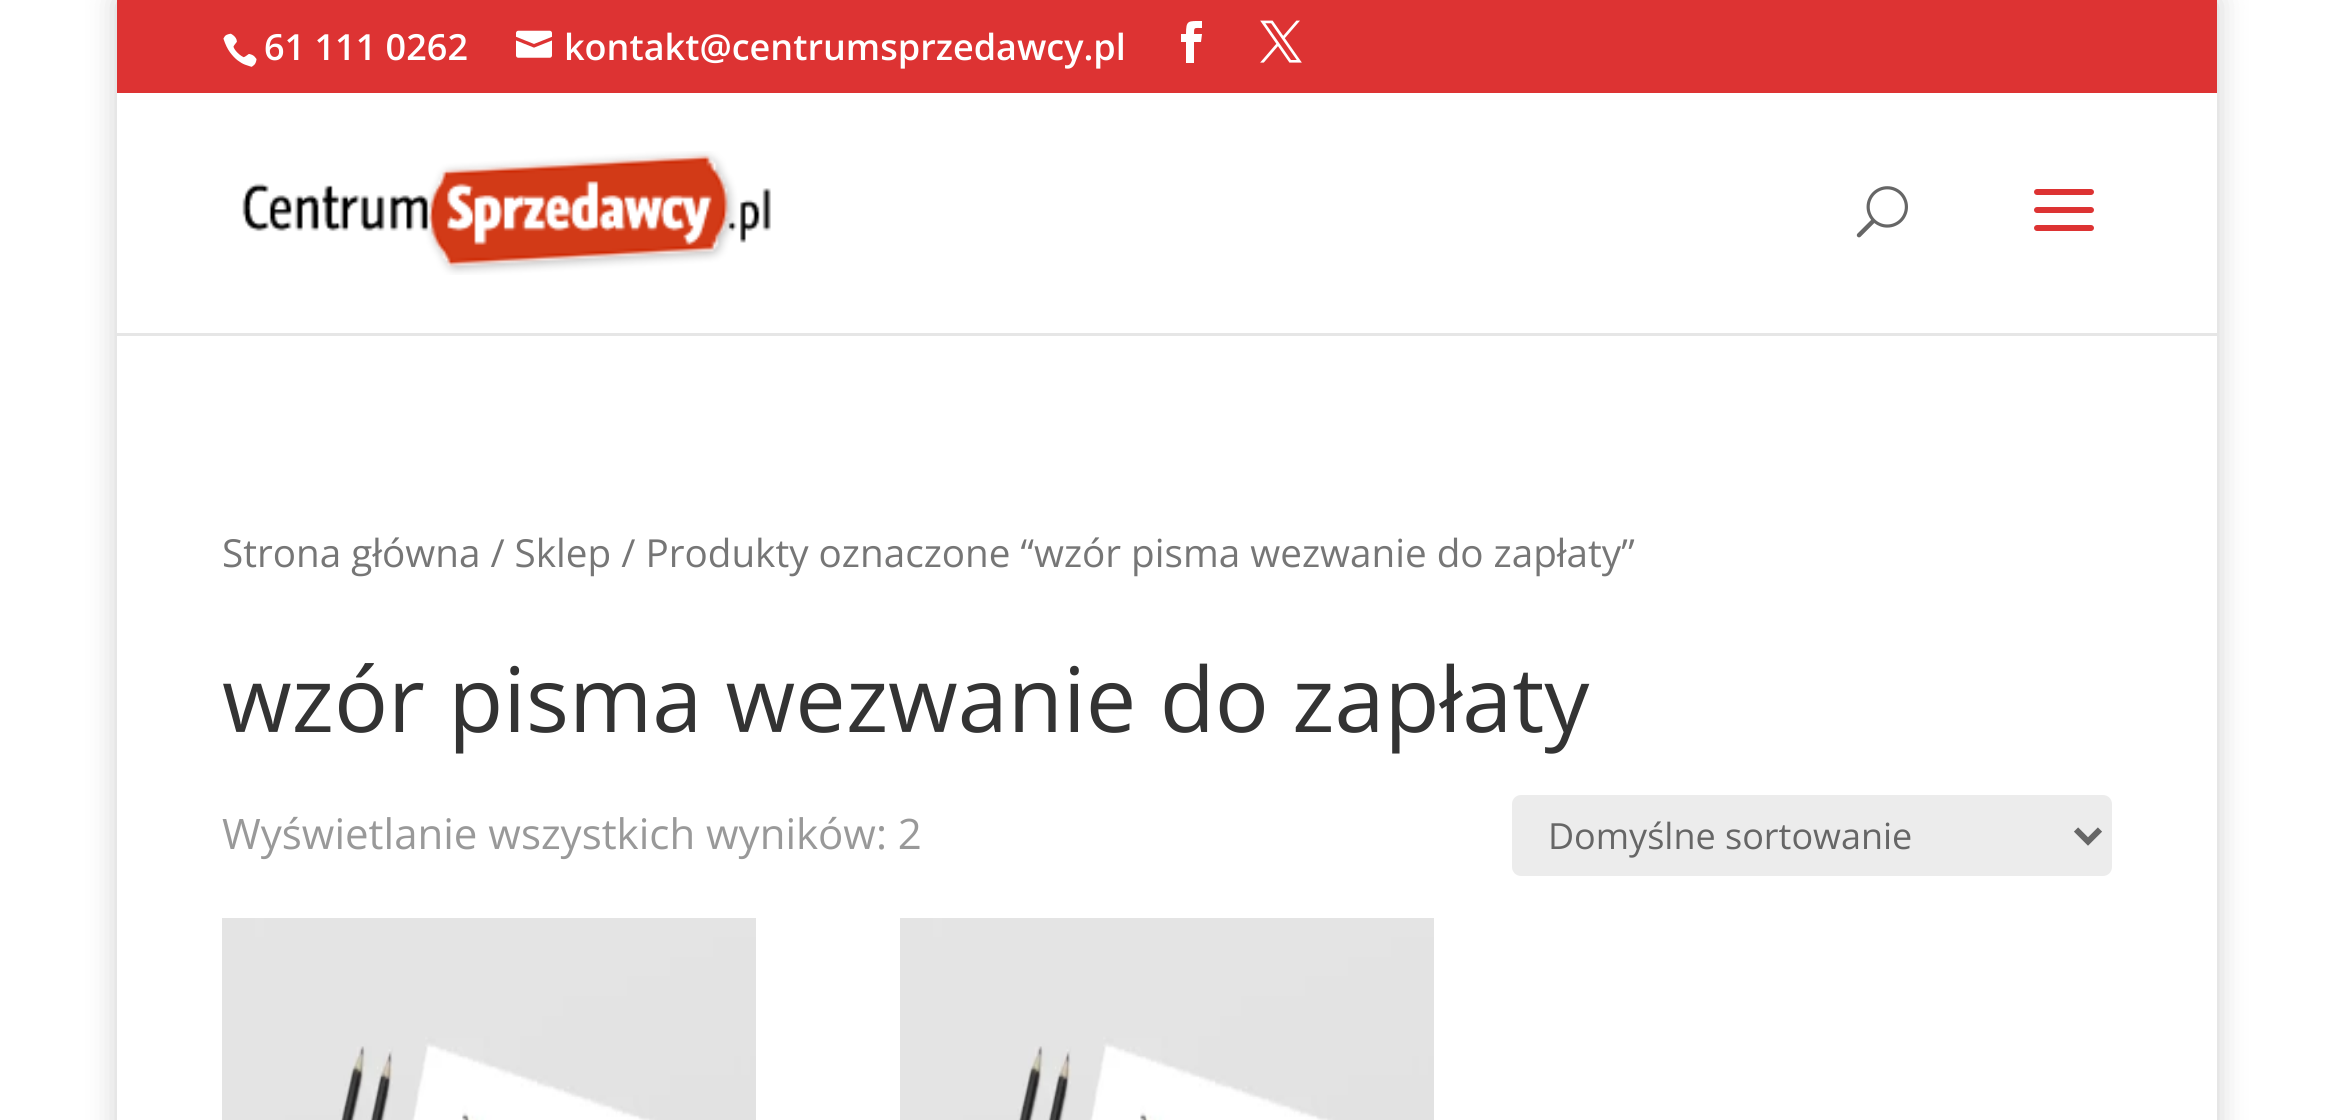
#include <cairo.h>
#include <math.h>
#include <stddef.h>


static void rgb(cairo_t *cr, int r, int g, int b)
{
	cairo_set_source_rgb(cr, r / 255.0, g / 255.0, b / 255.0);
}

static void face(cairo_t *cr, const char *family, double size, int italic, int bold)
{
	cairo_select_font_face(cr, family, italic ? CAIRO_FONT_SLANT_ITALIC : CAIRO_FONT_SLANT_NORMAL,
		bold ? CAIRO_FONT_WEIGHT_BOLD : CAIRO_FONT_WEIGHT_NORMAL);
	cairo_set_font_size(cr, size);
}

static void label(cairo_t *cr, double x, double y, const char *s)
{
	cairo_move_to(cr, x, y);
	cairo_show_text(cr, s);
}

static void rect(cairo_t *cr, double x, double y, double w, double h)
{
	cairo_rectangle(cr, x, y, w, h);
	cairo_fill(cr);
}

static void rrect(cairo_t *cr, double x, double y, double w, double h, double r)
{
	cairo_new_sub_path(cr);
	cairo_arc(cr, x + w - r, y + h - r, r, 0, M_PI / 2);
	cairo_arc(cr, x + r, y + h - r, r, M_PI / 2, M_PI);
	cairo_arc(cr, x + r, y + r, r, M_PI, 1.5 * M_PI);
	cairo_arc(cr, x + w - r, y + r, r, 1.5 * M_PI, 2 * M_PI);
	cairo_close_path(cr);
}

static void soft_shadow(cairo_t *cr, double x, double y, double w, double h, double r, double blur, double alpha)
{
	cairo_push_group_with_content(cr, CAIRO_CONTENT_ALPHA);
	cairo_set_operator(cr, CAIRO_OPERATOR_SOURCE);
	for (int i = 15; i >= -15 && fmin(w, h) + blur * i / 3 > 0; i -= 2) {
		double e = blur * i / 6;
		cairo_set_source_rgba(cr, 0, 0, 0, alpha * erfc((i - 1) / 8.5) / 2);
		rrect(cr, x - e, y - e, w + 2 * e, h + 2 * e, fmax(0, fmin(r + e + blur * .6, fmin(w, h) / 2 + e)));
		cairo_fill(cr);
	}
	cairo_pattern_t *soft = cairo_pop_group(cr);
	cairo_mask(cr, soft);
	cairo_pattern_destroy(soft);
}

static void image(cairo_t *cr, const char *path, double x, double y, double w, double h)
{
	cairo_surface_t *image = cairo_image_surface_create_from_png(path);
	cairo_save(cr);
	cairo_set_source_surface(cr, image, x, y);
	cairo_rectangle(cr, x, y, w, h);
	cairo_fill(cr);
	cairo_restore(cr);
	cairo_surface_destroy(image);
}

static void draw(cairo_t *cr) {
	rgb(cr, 255, 255, 255);
	cairo_paint(cr);
	cairo_save(cr);
	cairo_set_fill_rule(cr, CAIRO_FILL_RULE_EVEN_ODD);
	cairo_new_path(cr);
	cairo_move_to(cr, 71, 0);
	cairo_line_to(cr, 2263, 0);
	cairo_line_to(cr, 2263, 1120);
	cairo_line_to(cr, 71, 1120);
	cairo_close_path(cr);
	cairo_move_to(cr, 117, 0);
	cairo_line_to(cr, 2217, 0);
	cairo_line_to(cr, 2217, 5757);
	cairo_line_to(cr, 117, 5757);
	cairo_close_path(cr);
	cairo_clip(cr);
	rgb(cr, 0, 0, 0);
	soft_shadow(cr, 117, 0, 2100, 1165, 0, 15, 0.2);
	cairo_restore(cr);
	rgb(cr, 221, 51, 51);
	rect(cr, 117, 0, 2100, 93);
	image(cr, "image0.png", 223, 33, 34, 34);
	face(cr, "Open Sans SemiBold", 36, 0, 0);
	rgb(cr, 255, 255, 255);
	label(cr, 264, 60, "61 111 0262");
	image(cr, "image1.png", 516, 30, 36, 28);
	label(cr, 564, 60, "kontakt@centrumsprzedawcy.pl");
	cairo_new_path(cr);
	cairo_move_to(cr, 1186, 63);
	cairo_line_to(cr, 1194, 63);
	cairo_line_to(cr, 1194, 42);
	cairo_line_to(cr, 1201, 42);
	cairo_line_to(cr, 1202, 34);
	cairo_line_to(cr, 1194, 34);
	cairo_curve_to(cr, 1194, 27, 1194, 28, 1202, 28);
	cairo_line_to(cr, 1202, 21);
	cairo_curve_to(cr, 1188, 21, 1186, 20, 1186, 34);
	cairo_line_to(cr, 1181, 34);
	cairo_line_to(cr, 1181, 42);
	cairo_line_to(cr, 1186, 42);
	cairo_close_path(cr);
	cairo_fill(cr);
	image(cr, "image2.png", 1260, 20, 42, 43);
	rgb(cr, 230, 230, 230);
	rect(cr, 117, 333, 2100, 3);
	image(cr, "image3.png", 242, 151, 529, 124);
	image(cr, "image4.png", 1856, 186, 52, 52);
	image(cr, "image5.png", 2034, 189, 60, 42);
	face(cr, "Open Sans", 38.65, 0, 0);
	rgb(cr, 118, 118, 118);
	label(cr, 222, 567, "Strona główna / Sklep / Produkty oznaczone “wzór pisma wezwanie do zapłaty”");
	face(cr, "Open Sans", 90, 0, 0);
	rgb(cr, 51, 51, 51);
	label(cr, 222, 732, "wzór pisma wezwanie do zapłaty");
	face(cr, "Open Sans", 42, 0, 0);
	rgb(cr, 153, 153, 153);
	label(cr, 222, 849, "Wyświetlanie wszystkich wyników: 2");
	rgb(cr, 236, 236, 236);
	rrect(cr, 1512, 795, 600, 81, 9);
	cairo_fill(cr);
	cairo_new_path(cr);
	cairo_move_to(cr, 2076, 829.5);
	cairo_line_to(cr, 2088, 841.5);
	cairo_line_to(cr, 2100, 829.5);
	rgb(cr, 102, 102, 102);
	cairo_set_line_width(cr, 6);
	cairo_stroke(cr);
	face(cr, "Open Sans", 36, 0, 0);
	label(cr, 1548, 849, "Domyślne sortowanie");
	image(cr, "image6.png", 222, 918, 534, 202);
	image(cr, "image7.png", 900, 918, 534, 202);
}

int main(void) {
	cairo_surface_t *surface = cairo_image_surface_create(CAIRO_FORMAT_RGB24, 2334, 1120);
	cairo_t *cr = cairo_create(surface);
	cairo_font_options_t *options = cairo_font_options_create();
	cairo_font_options_set_hint_metrics(options, CAIRO_HINT_METRICS_OFF);
	cairo_font_options_set_hint_style(options, CAIRO_HINT_STYLE_NONE);
	cairo_set_font_options(cr, options);
	cairo_set_miter_limit(cr, 4);
	draw(cr);
	cairo_surface_write_to_png(surface, "render.png");
	cairo_font_options_destroy(options);
	cairo_destroy(cr);
	cairo_surface_destroy(surface);
	return 0;
}
